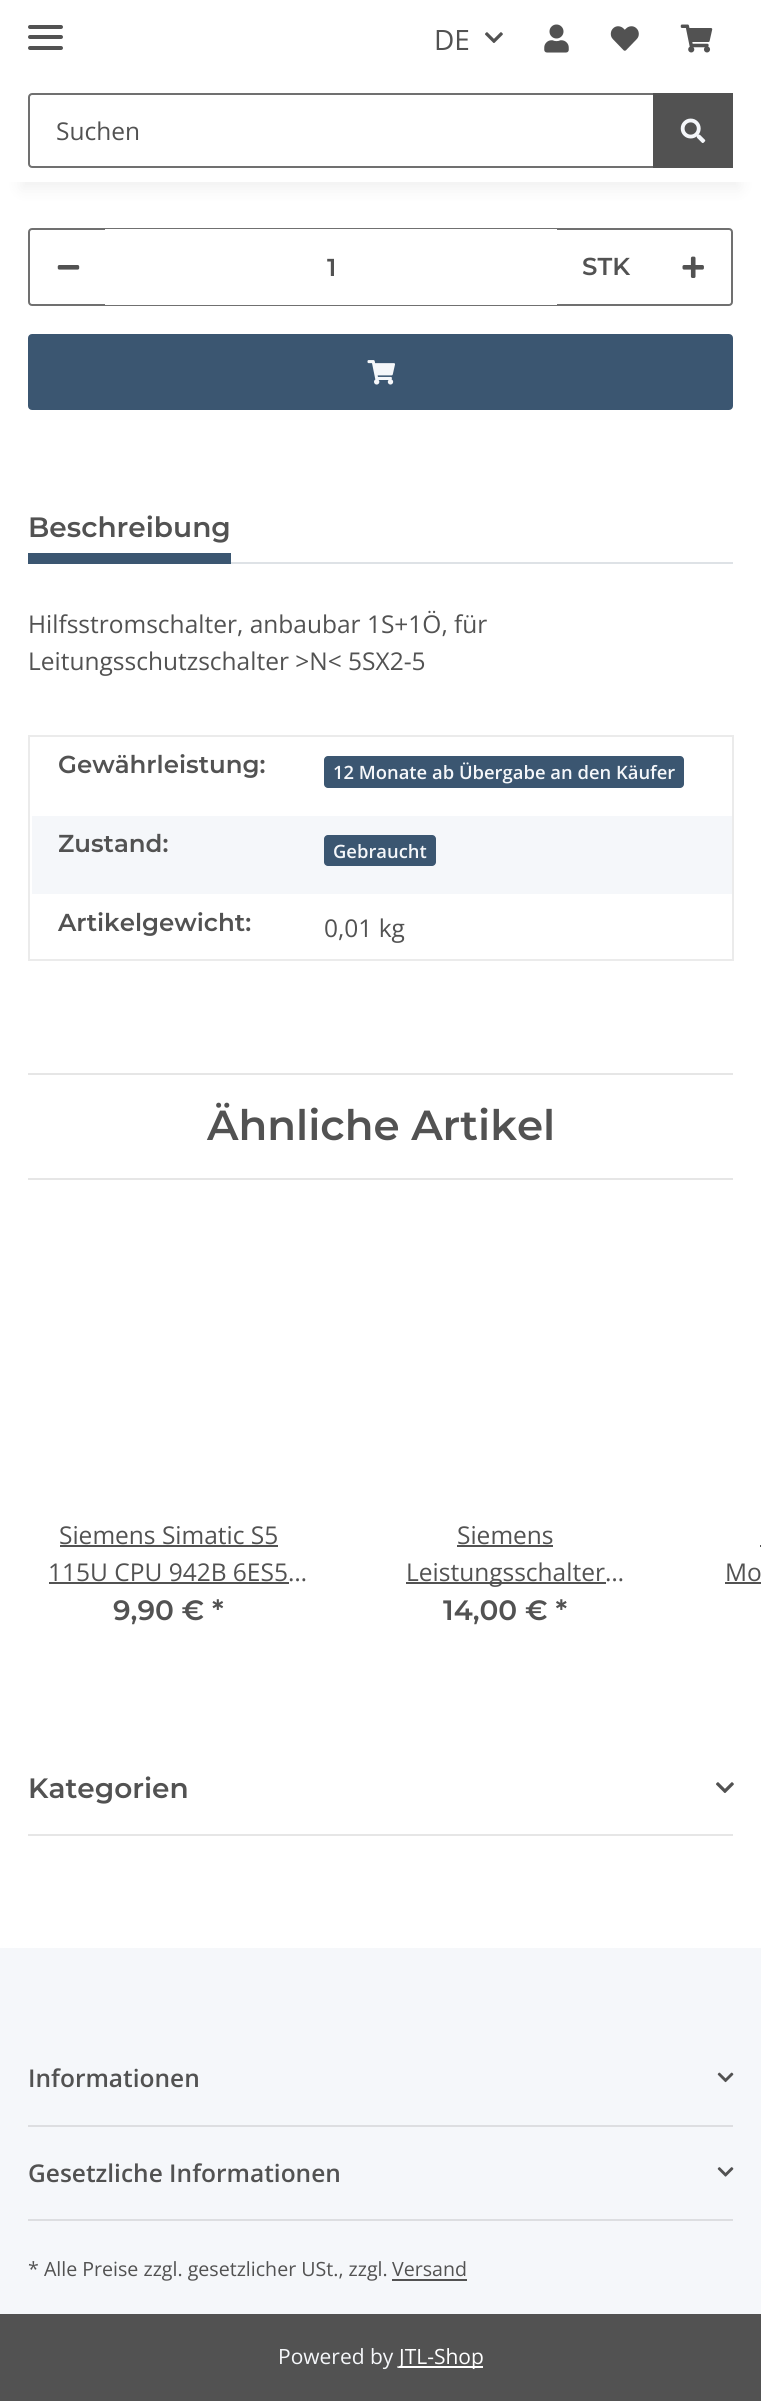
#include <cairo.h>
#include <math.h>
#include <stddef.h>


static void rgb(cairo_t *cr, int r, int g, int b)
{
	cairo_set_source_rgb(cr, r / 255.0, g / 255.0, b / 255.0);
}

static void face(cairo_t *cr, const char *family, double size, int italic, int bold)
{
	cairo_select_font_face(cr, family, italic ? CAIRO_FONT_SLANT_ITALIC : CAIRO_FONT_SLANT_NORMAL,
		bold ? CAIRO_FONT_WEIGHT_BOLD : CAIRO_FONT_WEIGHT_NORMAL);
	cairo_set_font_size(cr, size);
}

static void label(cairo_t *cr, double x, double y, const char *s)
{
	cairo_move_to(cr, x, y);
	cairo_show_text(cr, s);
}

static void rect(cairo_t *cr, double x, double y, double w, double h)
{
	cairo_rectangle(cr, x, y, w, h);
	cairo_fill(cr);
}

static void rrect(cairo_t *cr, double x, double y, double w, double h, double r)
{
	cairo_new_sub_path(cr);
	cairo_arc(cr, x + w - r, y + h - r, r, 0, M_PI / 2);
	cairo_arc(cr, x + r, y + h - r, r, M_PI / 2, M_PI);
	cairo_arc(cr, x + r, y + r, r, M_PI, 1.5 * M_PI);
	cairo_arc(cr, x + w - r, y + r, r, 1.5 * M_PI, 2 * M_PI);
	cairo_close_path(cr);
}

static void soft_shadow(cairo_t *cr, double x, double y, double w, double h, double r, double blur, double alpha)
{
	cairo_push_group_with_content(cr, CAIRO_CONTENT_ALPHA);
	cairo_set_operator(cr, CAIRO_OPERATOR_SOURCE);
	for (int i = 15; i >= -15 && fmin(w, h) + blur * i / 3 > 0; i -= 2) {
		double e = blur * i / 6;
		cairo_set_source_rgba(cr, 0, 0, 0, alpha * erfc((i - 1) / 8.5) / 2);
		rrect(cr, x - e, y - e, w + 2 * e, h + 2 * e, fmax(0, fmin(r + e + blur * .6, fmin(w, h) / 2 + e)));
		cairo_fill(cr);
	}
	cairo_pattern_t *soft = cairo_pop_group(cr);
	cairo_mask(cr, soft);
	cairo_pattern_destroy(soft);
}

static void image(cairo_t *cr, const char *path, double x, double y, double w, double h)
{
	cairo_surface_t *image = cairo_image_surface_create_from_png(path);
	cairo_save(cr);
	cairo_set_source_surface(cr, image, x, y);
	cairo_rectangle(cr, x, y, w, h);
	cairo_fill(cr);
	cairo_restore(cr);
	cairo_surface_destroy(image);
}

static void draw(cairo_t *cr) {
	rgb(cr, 245, 247, 250);
	cairo_paint(cr);
	rgb(cr, 255, 255, 255);
	rect(cr, 0, 182, 761, 1766);
	rgb(cr, 0, 0, 0);
	soft_shadow(cr, 21, 49, 719, 140, 0, 8, 0.06);
	rgb(cr, 255, 255, 255);
	rect(cr, 0, 0, 761, 182);
	rgb(cr, 82, 82, 82);
	rrect(cr, 28, 35, 35, 4, 2);
	cairo_fill(cr);
	rrect(cr, 28, 25, 35, 4, 2);
	cairo_fill(cr);
	rrect(cr, 28, 46, 35, 4, 2);
	cairo_fill(cr);
	face(cr, "Open Sans", 28, 0, 0);
	label(cr, 434, 50, "DE");
	image(cr, "image0.png", 485, 32, 18, 11);
	image(cr, "image1.png", 544, 24, 25, 29);
	image(cr, "image2.png", 610, 26, 29, 25);
	image(cr, "image3.png", 680, 24, 33, 29);
	cairo_new_path(cr);
	cairo_move_to(cr, 32, 94);
	cairo_line_to(cr, 654, 94);
	cairo_line_to(cr, 654, 167);
	cairo_line_to(cr, 32, 167);
	cairo_curve_to(cr, 30.5, 167, 29, 165.5, 29, 164);
	cairo_line_to(cr, 29, 97);
	cairo_curve_to(cr, 29, 95.5, 30.5, 94, 32, 94);
	cairo_close_path(cr);
	rgb(cr, 112, 112, 112);
	cairo_stroke(cr);
	face(cr, "Open Sans", 24.5, 0, 0);
	rgb(cr, 82, 82, 82);
	label(cr, 56, 140, "Suchen");
	rect(cr, 653, 93, 80, 75);
	image(cr, "image4.png", 680, 118, 26, 25);
	rrect(cr, 29, 229, 703, 76, 3);
	rgb(cr, 112, 112, 112);
	cairo_stroke(cr);
	image(cr, "image5.png", 57, 265, 23, 5);
	rgb(cr, 255, 255, 255);
	rect(cr, 105, 229, 452, 76);
	face(cr, "Montserrat SemiBold", 24.5, 0, 0);
	rgb(cr, 82, 82, 82);
	label(cr, 327, 276, "1");
	label(cr, 582, 275, "STK");
	image(cr, "image6.png", 682, 256, 22, 22);
	rgb(cr, 59, 86, 113);
	rrect(cr, 29, 335, 703, 74, 3);
	cairo_fill_preserve(cr);
	cairo_stroke(cr);
	image(cr, "image7.png", 367, 360, 28, 25);
	rgb(cr, 222, 226, 230);
	rect(cr, 231, 562, 502, 2);
	face(cr, "Montserrat SemiBold", 28, 0, 0);
	rgb(cr, 82, 82, 82);
	label(cr, 28, 537, "Beschreibung");
	rgb(cr, 59, 86, 113);
	rect(cr, 28, 553, 203, 11);
	face(cr, "Open Sans", 24.5, 0, 0);
	rgb(cr, 82, 82, 82);
	label(cr, 28, 633, "Hilfsstromschalter, anbaubar 1S+1Ö, für");
	label(cr, 28, 670, "Leitungsschutzschalter >N< 5SX2-5");
	rgb(cr, 235, 235, 235);
	rect(cr, 28, 735, 705, 2);
	rect(cr, 732, 816, 2, 145);
	rect(cr, 732, 735, 2, 82);
	rect(cr, 28, 959, 705, 2);
	rect(cr, 28, 816, 2, 145);
	rect(cr, 28, 735, 2, 82);
	face(cr, "Montserrat SemiBold", 24.5, 0, 0);
	rgb(cr, 82, 82, 82);
	label(cr, 58, 773, "Gewährleistung:");
	rgb(cr, 59, 86, 113);
	rrect(cr, 324, 756, 360, 32, 4);
	cairo_fill(cr);
	face(cr, "Open Sans SemiBold", 18.4, 0, 0);
	rgb(cr, 245, 247, 250);
	label(cr, 333, 779, "12 Monate ab Übergabe an den Käufer");
	rect(cr, 32, 816, 700, 78);
	face(cr, "Montserrat SemiBold", 24.5, 0, 0);
	rgb(cr, 82, 82, 82);
	label(cr, 58, 852, "Zustand:");
	rgb(cr, 59, 86, 113);
	rrect(cr, 324, 835, 112, 31, 4);
	cairo_fill(cr);
	face(cr, "Open Sans SemiBold", 18.4, 0, 0);
	rgb(cr, 245, 247, 250);
	label(cr, 333, 858, "Gebraucht");
	face(cr, "Montserrat SemiBold", 24.5, 0, 0);
	rgb(cr, 82, 82, 82);
	label(cr, 58, 931, "Artikelgewicht:");
	face(cr, "Open Sans", 24.5, 0, 0);
	label(cr, 324, 937, "0,01 kg");
	rgb(cr, 230, 230, 230);
	rect(cr, 28, 1073, 705, 2);
	rect(cr, 28, 1178, 705, 2);
	face(cr, "Montserrat SemiBold", 42, 0, 0);
	rgb(cr, 82, 82, 82);
	label(cr, 207, 1140, "Ähnliche Artikel");
	face(cr, "Open Sans", 24.5, 0, 0);
	label(cr, 59, 1544, "Siemens Simatic S5");
	rect(cr, 60, 1545, 218, 2);
	label(cr, 48, 1581, "115U CPU 942B 6ES5…");
	rect(cr, 49, 1582, 240, 2);
	face(cr, "Montserrat SemiBold", 28, 0, 0);
	label(cr, 113, 1620, "9,90 € *");
	face(cr, "Open Sans", 24.5, 0, 0);
	label(cr, 457, 1544, "Siemens");
	rect(cr, 457, 1545, 96, 2);
	rect(cr, 406, 1582, 200, 2);
	label(cr, 406, 1581, "Leistungsschalter…");
	face(cr, "Montserrat SemiBold", 28, 0, 0);
	label(cr, 443, 1620, "14,00 € *");
	face(cr, "Open Sans", 24.5, 0, 0);
	label(cr, 725, 1581, "Mo");
	rect(cr, 760, 1545, 1, 2);
	rect(cr, 725, 1582, 36, 2);
	face(cr, "Montserrat SemiBold", 28, 0, 0);
	label(cr, 28, 1798, "Kategorien");
	image(cr, "image0.png", 716, 1782, 18, 11);
	rgb(cr, 230, 230, 230);
	rect(cr, 28, 1834, 705, 2);
	face(cr, "Open Sans SemiBold", 24.5, 0, 0);
	rgb(cr, 82, 82, 82);
	label(cr, 28, 2087, "Informationen");
	image(cr, "image8.png", 717, 2072, 17, 11);
	rgb(cr, 221, 222, 225);
	rect(cr, 28, 2125, 705, 2);
	rgb(cr, 82, 82, 82);
	label(cr, 28, 2182, "Gesetzliche Informationen");
	image(cr, "image9.png", 717, 2167, 17, 10);
	rgb(cr, 221, 222, 225);
	rect(cr, 28, 2219, 705, 2);
	face(cr, "Open Sans", 19.6, 0, 0);
	rgb(cr, 82, 82, 82);
	label(cr, 28, 2276, "* Alle Preise zzgl. gesetzlicher USt., zzgl.");
	label(cr, 392, 2276, "Versand");
	rect(cr, 392, 2279, 75, 2);
	rect(cr, 0, 2314, 761, 87);
	face(cr, "Open Sans", 21, 0, 0);
	rgb(cr, 245, 247, 250);
	label(cr, 278, 2364, "Powered by");
	rgb(cr, 255, 255, 255);
	rect(cr, 399, 2366, 84, 2);
	label(cr, 399, 2364, "JTL-Shop");
}

int main(void) {
	cairo_surface_t *surface = cairo_image_surface_create(CAIRO_FORMAT_RGB24, 761, 2401);
	cairo_t *cr = cairo_create(surface);
	cairo_font_options_t *options = cairo_font_options_create();
	cairo_font_options_set_hint_metrics(options, CAIRO_HINT_METRICS_OFF);
	cairo_font_options_set_hint_style(options, CAIRO_HINT_STYLE_NONE);
	cairo_set_font_options(cr, options);
	cairo_set_miter_limit(cr, 4);
	draw(cr);
	cairo_surface_write_to_png(surface, "render.png");
	cairo_font_options_destroy(options);
	cairo_destroy(cr);
	cairo_surface_destroy(surface);
	return 0;
}
